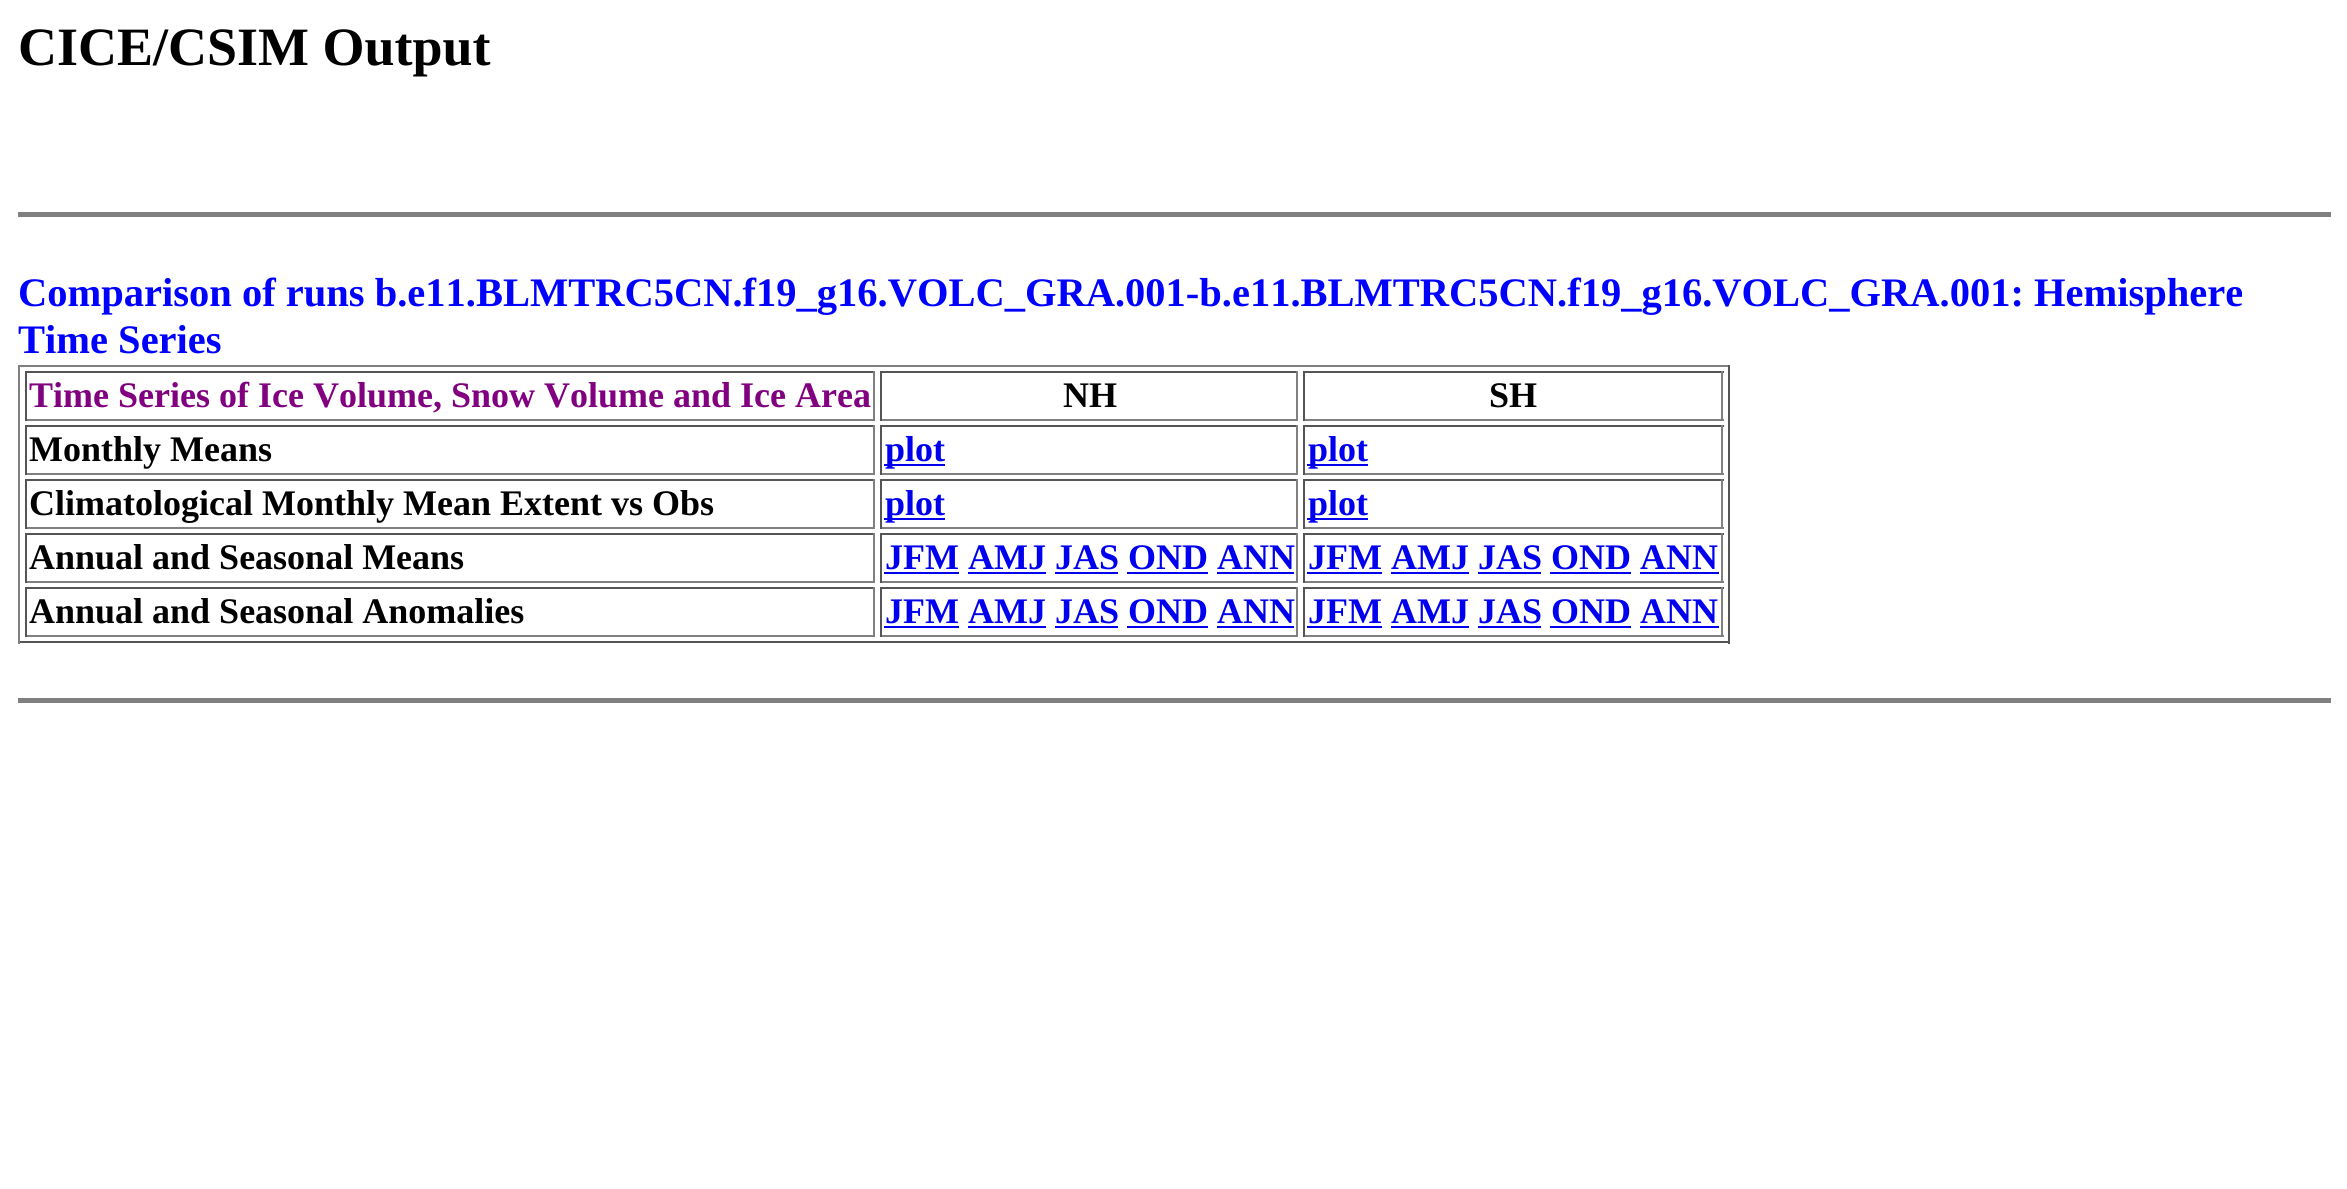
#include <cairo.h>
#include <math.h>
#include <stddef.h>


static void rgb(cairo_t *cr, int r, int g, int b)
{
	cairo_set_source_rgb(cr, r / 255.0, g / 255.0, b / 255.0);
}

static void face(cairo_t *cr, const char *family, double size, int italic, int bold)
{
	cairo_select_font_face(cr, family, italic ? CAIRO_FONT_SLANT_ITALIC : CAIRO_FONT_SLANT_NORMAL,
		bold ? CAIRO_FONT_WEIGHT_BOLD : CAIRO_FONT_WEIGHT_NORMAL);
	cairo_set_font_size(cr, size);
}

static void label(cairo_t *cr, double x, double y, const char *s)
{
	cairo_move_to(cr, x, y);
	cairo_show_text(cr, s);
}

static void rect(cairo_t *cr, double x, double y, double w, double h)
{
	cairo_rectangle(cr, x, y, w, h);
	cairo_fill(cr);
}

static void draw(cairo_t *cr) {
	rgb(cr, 255, 255, 255);
	cairo_paint(cr);
	face(cr, "Liberation Serif", 54, 0, 1);
	rgb(cr, 0, 0, 0);
	label(cr, 18, 65, "CICE/CSIM Output");
	rgb(cr, 128, 128, 128);
	rect(cr, 18, 212, 2313, 5);
	face(cr, "Liberation Serif", 40.5, 0, 1);
	rgb(cr, 0, 0, 255);
	label(cr, 18, 306, "Comparison of runs b.e11.BLMTRC5CN.f19_g16.VOLC_GRA.001-b.e11.BLMTRC5CN.f19_g16.VOLC_GRA.001: Hemisphere");
	label(cr, 18, 353, "Time Series");
	rgb(cr, 128, 128, 128);
	rect(cr, 18, 365, 1712, 2);
	rgb(cr, 85, 85, 85);
	rect(cr, 1728, 365, 2, 279);
	rect(cr, 18, 641, 1712, 2);
	rgb(cr, 128, 128, 128);
	rect(cr, 18, 365, 2, 279);
	rgb(cr, 85, 85, 85);
	rect(cr, 25, 371, 850, 2);
	rgb(cr, 128, 128, 128);
	rect(cr, 873, 371, 2, 50);
	rect(cr, 25, 419, 850, 2);
	rgb(cr, 85, 85, 85);
	rect(cr, 25, 371, 2, 50);
	face(cr, "Liberation Serif", 36, 0, 1);
	rgb(cr, 128, 0, 128);
	label(cr, 29, 407, "Time Series of Ice Volume, Snow Volume and Ice Area");
	rgb(cr, 85, 85, 85);
	rect(cr, 880, 371, 418, 2);
	rgb(cr, 128, 128, 128);
	rect(cr, 1296, 371, 2, 50);
	rect(cr, 880, 419, 418, 2);
	rgb(cr, 85, 85, 85);
	rect(cr, 880, 371, 2, 50);
	rgb(cr, 0, 0, 0);
	label(cr, 1063, 407, "NH");
	rgb(cr, 85, 85, 85);
	rect(cr, 1303, 371, 421, 2);
	rgb(cr, 128, 128, 128);
	rect(cr, 1721, 371, 2, 50);
	rect(cr, 1303, 419, 421, 2);
	rgb(cr, 85, 85, 85);
	rect(cr, 1303, 371, 2, 50);
	rgb(cr, 0, 0, 0);
	label(cr, 1489, 407, "SH");
	rgb(cr, 85, 85, 85);
	rect(cr, 25, 425, 850, 2);
	rgb(cr, 128, 128, 128);
	rect(cr, 873, 425, 2, 50);
	rect(cr, 25, 473, 850, 2);
	rgb(cr, 85, 85, 85);
	rect(cr, 25, 425, 2, 50);
	rgb(cr, 0, 0, 0);
	label(cr, 29, 461, "Monthly Means");
	rgb(cr, 85, 85, 85);
	rect(cr, 880, 425, 418, 2);
	rgb(cr, 128, 128, 128);
	rect(cr, 1296, 425, 2, 50);
	rect(cr, 880, 473, 418, 2);
	rgb(cr, 85, 85, 85);
	rect(cr, 880, 425, 2, 50);
	rgb(cr, 0, 0, 238);
	rect(cr, 884, 464, 61, 2);
	label(cr, 885, 461, "plot");
	rgb(cr, 85, 85, 85);
	rect(cr, 1303, 425, 421, 2);
	rgb(cr, 128, 128, 128);
	rect(cr, 1721, 425, 2, 50);
	rect(cr, 1303, 473, 421, 2);
	rgb(cr, 85, 85, 85);
	rect(cr, 1303, 425, 2, 50);
	rgb(cr, 0, 0, 238);
	rect(cr, 1307, 464, 61, 2);
	label(cr, 1308, 461, "plot");
	rgb(cr, 85, 85, 85);
	rect(cr, 25, 479, 850, 2);
	rgb(cr, 128, 128, 128);
	rect(cr, 873, 479, 2, 50);
	rect(cr, 25, 527, 850, 2);
	rgb(cr, 85, 85, 85);
	rect(cr, 25, 479, 2, 50);
	rgb(cr, 0, 0, 0);
	label(cr, 29, 515, "Climatological Monthly Mean Extent vs Obs");
	rgb(cr, 85, 85, 85);
	rect(cr, 880, 479, 418, 2);
	rgb(cr, 128, 128, 128);
	rect(cr, 1296, 479, 2, 50);
	rect(cr, 880, 527, 418, 2);
	rgb(cr, 85, 85, 85);
	rect(cr, 880, 479, 2, 50);
	rgb(cr, 0, 0, 238);
	rect(cr, 884, 518, 61, 2);
	label(cr, 885, 515, "plot");
	rgb(cr, 85, 85, 85);
	rect(cr, 1303, 479, 421, 2);
	rgb(cr, 128, 128, 128);
	rect(cr, 1721, 479, 2, 50);
	rect(cr, 1303, 527, 421, 2);
	rgb(cr, 85, 85, 85);
	rect(cr, 1303, 479, 2, 50);
	rgb(cr, 0, 0, 238);
	rect(cr, 1307, 518, 61, 2);
	label(cr, 1308, 515, "plot");
	rgb(cr, 85, 85, 85);
	rect(cr, 25, 533, 850, 2);
	rgb(cr, 128, 128, 128);
	rect(cr, 873, 533, 2, 50);
	rect(cr, 25, 581, 850, 2);
	rgb(cr, 85, 85, 85);
	rect(cr, 25, 533, 2, 50);
	rgb(cr, 0, 0, 0);
	label(cr, 29, 569, "Annual and Seasonal Means");
	rgb(cr, 85, 85, 85);
	rect(cr, 880, 533, 418, 2);
	rgb(cr, 128, 128, 128);
	rect(cr, 1296, 533, 2, 50);
	rect(cr, 880, 581, 418, 2);
	rgb(cr, 85, 85, 85);
	rect(cr, 880, 533, 2, 50);
	rgb(cr, 0, 0, 238);
	label(cr, 885, 569, "JFM AMJ JAS OND ANN");
	rect(cr, 884, 572, 75, 2);
	rect(cr, 968, 572, 78, 2);
	rect(cr, 1055, 572, 63, 2);
	rect(cr, 1127, 572, 81, 2);
	rect(cr, 1217, 572, 77, 2);
	rgb(cr, 85, 85, 85);
	rect(cr, 1303, 533, 421, 2);
	rgb(cr, 128, 128, 128);
	rect(cr, 1721, 533, 2, 50);
	rect(cr, 1303, 581, 421, 2);
	rgb(cr, 85, 85, 85);
	rect(cr, 1303, 533, 2, 50);
	rgb(cr, 0, 0, 238);
	label(cr, 1308, 569, "JFM AMJ JAS OND ANN");
	rect(cr, 1307, 572, 75, 2);
	rect(cr, 1391, 572, 78, 2);
	rect(cr, 1478, 572, 63, 2);
	rect(cr, 1550, 572, 81, 2);
	rect(cr, 1640, 572, 79, 2);
	rgb(cr, 85, 85, 85);
	rect(cr, 25, 587, 850, 2);
	rgb(cr, 128, 128, 128);
	rect(cr, 873, 587, 2, 50);
	rect(cr, 25, 635, 850, 2);
	rgb(cr, 85, 85, 85);
	rect(cr, 25, 587, 2, 50);
	rgb(cr, 0, 0, 0);
	label(cr, 29, 623, "Annual and Seasonal Anomalies");
	rgb(cr, 85, 85, 85);
	rect(cr, 880, 587, 418, 2);
	rgb(cr, 128, 128, 128);
	rect(cr, 1296, 587, 2, 50);
	rect(cr, 880, 635, 418, 2);
	rgb(cr, 85, 85, 85);
	rect(cr, 880, 587, 2, 50);
	rgb(cr, 0, 0, 238);
	label(cr, 885, 623, "JFM AMJ JAS OND ANN");
	rect(cr, 884, 626, 75, 2);
	rect(cr, 968, 626, 78, 2);
	rect(cr, 1055, 626, 63, 2);
	rect(cr, 1127, 626, 81, 2);
	rect(cr, 1217, 626, 77, 2);
	rgb(cr, 85, 85, 85);
	rect(cr, 1303, 587, 421, 2);
	rgb(cr, 128, 128, 128);
	rect(cr, 1721, 587, 2, 50);
	rect(cr, 1303, 635, 421, 2);
	rgb(cr, 85, 85, 85);
	rect(cr, 1303, 587, 2, 50);
	rgb(cr, 0, 0, 238);
	label(cr, 1308, 623, "JFM AMJ JAS OND ANN");
	rect(cr, 1307, 626, 75, 2);
	rect(cr, 1391, 626, 78, 2);
	rect(cr, 1478, 626, 63, 2);
	rect(cr, 1550, 626, 81, 2);
	rect(cr, 1640, 626, 79, 2);
	rgb(cr, 128, 128, 128);
	rect(cr, 18, 698, 2313, 5);
}

int main(void) {
	cairo_surface_t *surface = cairo_image_surface_create(CAIRO_FORMAT_RGB24, 2347, 1189);
	cairo_t *cr = cairo_create(surface);
	cairo_font_options_t *options = cairo_font_options_create();
	cairo_font_options_set_hint_metrics(options, CAIRO_HINT_METRICS_OFF);
	cairo_font_options_set_hint_style(options, CAIRO_HINT_STYLE_NONE);
	cairo_set_font_options(cr, options);
	cairo_set_miter_limit(cr, 4);
	draw(cr);
	cairo_surface_write_to_png(surface, "render.png");
	cairo_font_options_destroy(options);
	cairo_destroy(cr);
	cairo_surface_destroy(surface);
	return 0;
}
